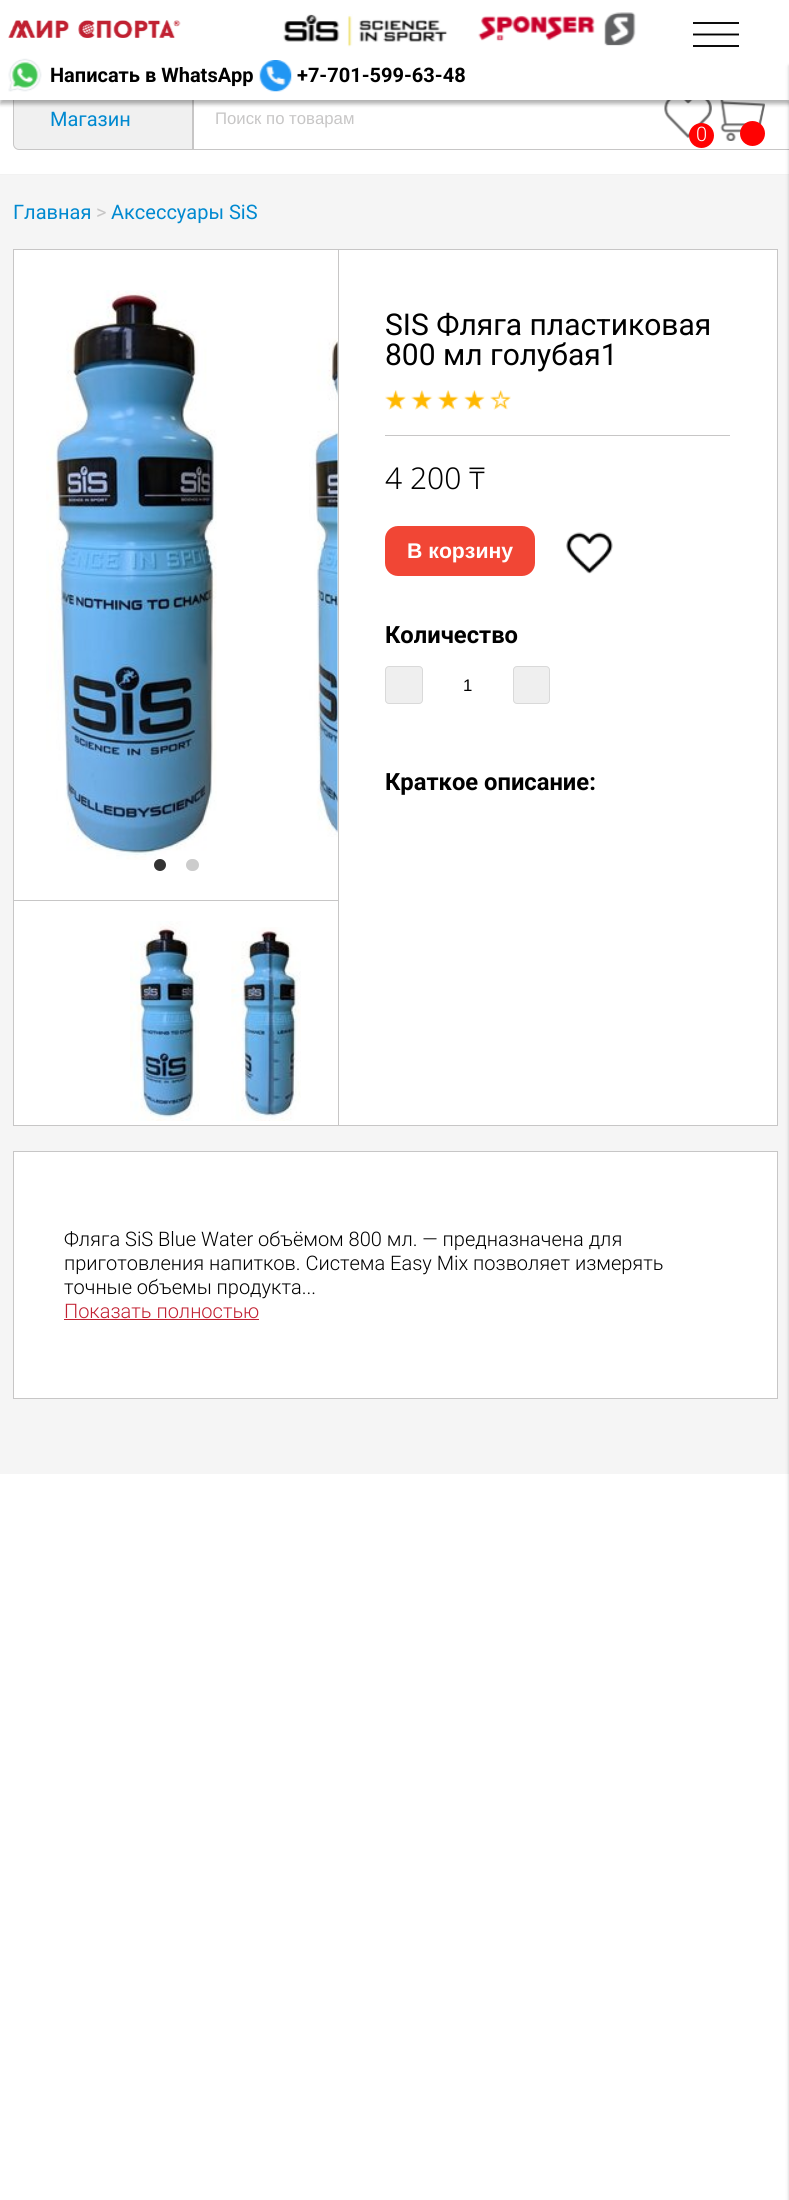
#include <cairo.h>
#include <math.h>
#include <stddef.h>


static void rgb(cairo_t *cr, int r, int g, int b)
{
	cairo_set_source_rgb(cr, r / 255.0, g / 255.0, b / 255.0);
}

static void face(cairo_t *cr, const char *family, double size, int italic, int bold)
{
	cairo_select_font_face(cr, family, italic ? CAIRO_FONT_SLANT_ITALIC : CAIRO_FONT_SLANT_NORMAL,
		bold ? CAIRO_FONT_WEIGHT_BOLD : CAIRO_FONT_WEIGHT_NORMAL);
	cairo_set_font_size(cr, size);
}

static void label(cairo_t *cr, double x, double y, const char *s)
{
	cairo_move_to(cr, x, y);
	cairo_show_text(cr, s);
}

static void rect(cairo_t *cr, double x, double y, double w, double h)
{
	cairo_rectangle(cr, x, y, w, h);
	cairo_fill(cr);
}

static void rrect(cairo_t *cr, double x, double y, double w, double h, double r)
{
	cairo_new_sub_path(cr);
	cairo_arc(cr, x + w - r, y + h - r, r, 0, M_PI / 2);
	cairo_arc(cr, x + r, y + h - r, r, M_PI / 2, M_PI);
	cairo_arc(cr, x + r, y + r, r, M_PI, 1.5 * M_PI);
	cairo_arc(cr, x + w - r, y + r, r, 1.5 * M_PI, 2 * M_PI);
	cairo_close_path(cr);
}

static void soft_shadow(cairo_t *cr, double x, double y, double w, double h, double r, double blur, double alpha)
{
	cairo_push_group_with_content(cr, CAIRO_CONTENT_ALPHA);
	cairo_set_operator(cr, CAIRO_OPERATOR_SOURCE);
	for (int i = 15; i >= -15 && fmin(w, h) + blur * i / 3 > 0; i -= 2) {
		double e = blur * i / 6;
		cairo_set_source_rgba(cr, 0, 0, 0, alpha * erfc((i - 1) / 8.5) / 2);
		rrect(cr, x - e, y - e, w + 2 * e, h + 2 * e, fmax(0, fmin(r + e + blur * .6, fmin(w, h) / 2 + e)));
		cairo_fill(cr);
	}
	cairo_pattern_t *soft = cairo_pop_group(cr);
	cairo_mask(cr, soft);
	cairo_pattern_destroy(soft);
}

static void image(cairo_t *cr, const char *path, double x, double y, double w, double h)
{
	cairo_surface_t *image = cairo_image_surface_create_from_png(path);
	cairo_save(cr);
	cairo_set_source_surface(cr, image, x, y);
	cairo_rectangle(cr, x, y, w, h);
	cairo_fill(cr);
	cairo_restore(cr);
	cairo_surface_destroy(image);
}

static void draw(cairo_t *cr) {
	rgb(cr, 255, 255, 255);
	cairo_paint(cr);
	rgb(cr, 240, 240, 240);
	cairo_new_path(cr);
	cairo_move_to(cr, 19, 88.5);
	cairo_line_to(cr, 192.5, 88.5);
	cairo_line_to(cr, 192.5, 149.5);
	cairo_line_to(cr, 19, 149.5);
	cairo_curve_to(cr, 16, 149.5, 13.5, 147, 13.5, 144);
	cairo_line_to(cr, 13.5, 94);
	cairo_curve_to(cr, 13.5, 91, 16, 88.5, 19, 88.5);
	cairo_close_path(cr);
	cairo_fill_preserve(cr);
	rgb(cr, 199, 198, 198);
	cairo_set_line_width(cr, 1);
	cairo_stroke(cr);
	cairo_rectangle(cr, 193.5, 88.5, 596, 61);
	cairo_stroke(cr);
	image(cr, "image5.png", 664, 100, 48, 38);
	image(cr, "image6.png", 720, 100, 45, 41);
	rgb(cr, 0, 0, 0);
	soft_shadow(cr, 0, 4, 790, 100, 0, 2, 0.3);
	rgb(cr, 255, 255, 255);
	rect(cr, 0, 0, 789, 100);
	image(cr, "image0.png", 8, 20, 173, 18);
	image(cr, "image1.png", 283, 14, 165, 33);
	image(cr, "image2.png", 478, 12, 158, 34);
	rgb(cr, 13, 13, 13);
	rect(cr, 693, 22, 46, 2);
	cairo_save(cr);
	cairo_rectangle(cr, 693, 21, 46, 27);
	cairo_clip(cr);
	cairo_new_path(cr);
	cairo_move_to(cr, 692.5, 34.5);
	cairo_line_to(cr, 739, 34.5);
	rgb(cr, 0, 0, 0);
	cairo_set_line_width(cr, 1.9);
	cairo_stroke(cr);
	cairo_restore(cr);
	rect(cr, 693, 45, 46, 2);
	image(cr, "image3.png", 8, 58, 34, 34);
	face(cr, "Roboto", 20, 0, 1);
	rgb(cr, 0, 0, 0);
	label(cr, 50, 82, "Написать в WhatsApp");
	image(cr, "image4.png", 259, 60, 33, 32);
	label(cr, 297, 82, "+7-701-599-63-48");
	rgb(cr, 242, 242, 242);
	rect(cr, 0, 174, 789, 1);
	rgb(cr, 245, 245, 245);
	rect(cr, 0, 175, 789, 1299);
	rgb(cr, 0, 0, 0);
	soft_shadow(cr, 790, 66, 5, 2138, 0, 2, 0.4);
	face(cr, "Roboto", 20, 0, 0);
	rgb(cr, 0, 137, 208);
	label(cr, 50, 126, "Магазин");
	face(cr, "Liberation Sans", 16.75, 0, 0);
	rgb(cr, 199, 198, 198);
	label(cr, 215, 124, "Поиск по товарам");
	rgb(cr, 255, 2, 2);
	cairo_new_path(cr);
	cairo_arc(cr, 701.5, 135.5, 12.5, 0, 2 * M_PI);
	cairo_fill(cr);
	face(cr, "Roboto Light", 20, 0, 0);
	rgb(cr, 255, 255, 255);
	label(cr, 696, 141, "0");
	rgb(cr, 255, 2, 2);
	cairo_new_path(cr);
	cairo_arc(cr, 752.5, 133.5, 12.5, 0, 2 * M_PI);
	cairo_fill(cr);
	face(cr, "Roboto", 20, 0, 0);
	rgb(cr, 0, 137, 208);
	label(cr, 13, 219, "Главная");
	rgb(cr, 199, 198, 198);
	label(cr, 96, 219, ">");
	rgb(cr, 0, 137, 208);
	label(cr, 111, 219, "Аксессуары SiS");
	rgb(cr, 255, 255, 255);
	cairo_rectangle(cr, 13.5, 249.5, 764, 876);
	cairo_fill_preserve(cr);
	rgb(cr, 199, 198, 198);
	cairo_stroke(cr);
	rect(cr, 338, 250, 1, 875);
	image(cr, "image7.png", 46, 290, 171, 570);
	image(cr, "image8.png", 309, 338, 29, 499);
	rgb(cr, 51, 51, 51);
	cairo_arc(cr, 160, 865, 6, 0, 2 * M_PI);
	cairo_fill(cr);
	rgb(cr, 204, 204, 204);
	rrect(cr, 186, 859, 13, 12, 6);
	cairo_fill(cr);
	rgb(cr, 199, 198, 198);
	rect(cr, 14, 900, 324, 1);
	image(cr, "image9.png", 130, 921, 70, 200);
	image(cr, "image10.png", 231, 927, 70, 194);
	face(cr, "Roboto", 30, 0, 0);
	rgb(cr, 0, 0, 0);
	label(cr, 385, 335, "SIS Фляга пластиковая");
	label(cr, 385, 365, "800 мл голубая1");
	rgb(cr, 199, 198, 198);
	rect(cr, 385, 435, 345, 1);
	image(cr, "image11.png", 385, 390, 21, 20);
	image(cr, "image12.png", 411, 390, 22, 20);
	image(cr, "image13.png", 437, 390, 22, 20);
	image(cr, "image14.png", 463, 390, 22, 20);
	image(cr, "image15.png", 490, 390, 21, 20);
	face(cr, "Noto Sans Light", 30, 0, 0);
	rgb(cr, 0, 0, 0);
	label(cr, 385, 489, "4 200 ₸");
	rgb(cr, 241, 70, 53);
	rrect(cr, 385, 526, 150, 50, 13);
	cairo_fill(cr);
	face(cr, "Liberation Sans", 21.25, 0, 1);
	rgb(cr, 255, 255, 255);
	label(cr, 407, 558, "В корзину");
	image(cr, "image16.png", 566, 532, 47, 42);
	face(cr, "Roboto", 23.75, 0, 1);
	rgb(cr, 0, 0, 0);
	label(cr, 385, 643, "Количество");
	rgb(cr, 239, 239, 239);
	rrect(cr, 385.5, 666.5, 37, 37, 3.5);
	cairo_fill_preserve(cr);
	rgb(cr, 217, 217, 217);
	cairo_stroke(cr);
	face(cr, "Liberation Sans", 16.75, 0, 0);
	rgb(cr, 0, 0, 0);
	label(cr, 463, 691, "1");
	rgb(cr, 239, 239, 239);
	rrect(cr, 513.5, 666.5, 36, 37, 3.5);
	cairo_fill_preserve(cr);
	rgb(cr, 217, 217, 217);
	cairo_stroke(cr);
	face(cr, "Roboto", 23.75, 0, 1);
	rgb(cr, 0, 0, 0);
	label(cr, 385, 790, "Краткое описание:");
	rgb(cr, 255, 255, 255);
	cairo_rectangle(cr, 13.5, 1151.5, 764, 247);
	cairo_fill_preserve(cr);
	rgb(cr, 199, 198, 198);
	cairo_stroke(cr);
	face(cr, "Roboto Light", 20, 0, 0);
	rgb(cr, 0, 0, 0);
	label(cr, 64, 1246, "Фляга SiS Blue Water объёмом 800 мл. — предназначена для");
	label(cr, 64, 1270, "приготовления напитков. Система Easy Mix позволяет измерять");
	label(cr, 64, 1294, "точные объемы продукта...");
	rgb(cr, 194, 33, 50);
	label(cr, 64, 1318, "Показать полностью");
	rect(cr, 64, 1319, 195, 1);
}

int main(void) {
	cairo_surface_t *surface = cairo_image_surface_create(CAIRO_FORMAT_RGB24, 789, 2200);
	cairo_t *cr = cairo_create(surface);
	cairo_font_options_t *options = cairo_font_options_create();
	cairo_font_options_set_hint_metrics(options, CAIRO_HINT_METRICS_OFF);
	cairo_font_options_set_hint_style(options, CAIRO_HINT_STYLE_NONE);
	cairo_set_font_options(cr, options);
	cairo_set_miter_limit(cr, 4);
	draw(cr);
	cairo_surface_write_to_png(surface, "render.png");
	cairo_font_options_destroy(options);
	cairo_destroy(cr);
	cairo_surface_destroy(surface);
	return 0;
}
